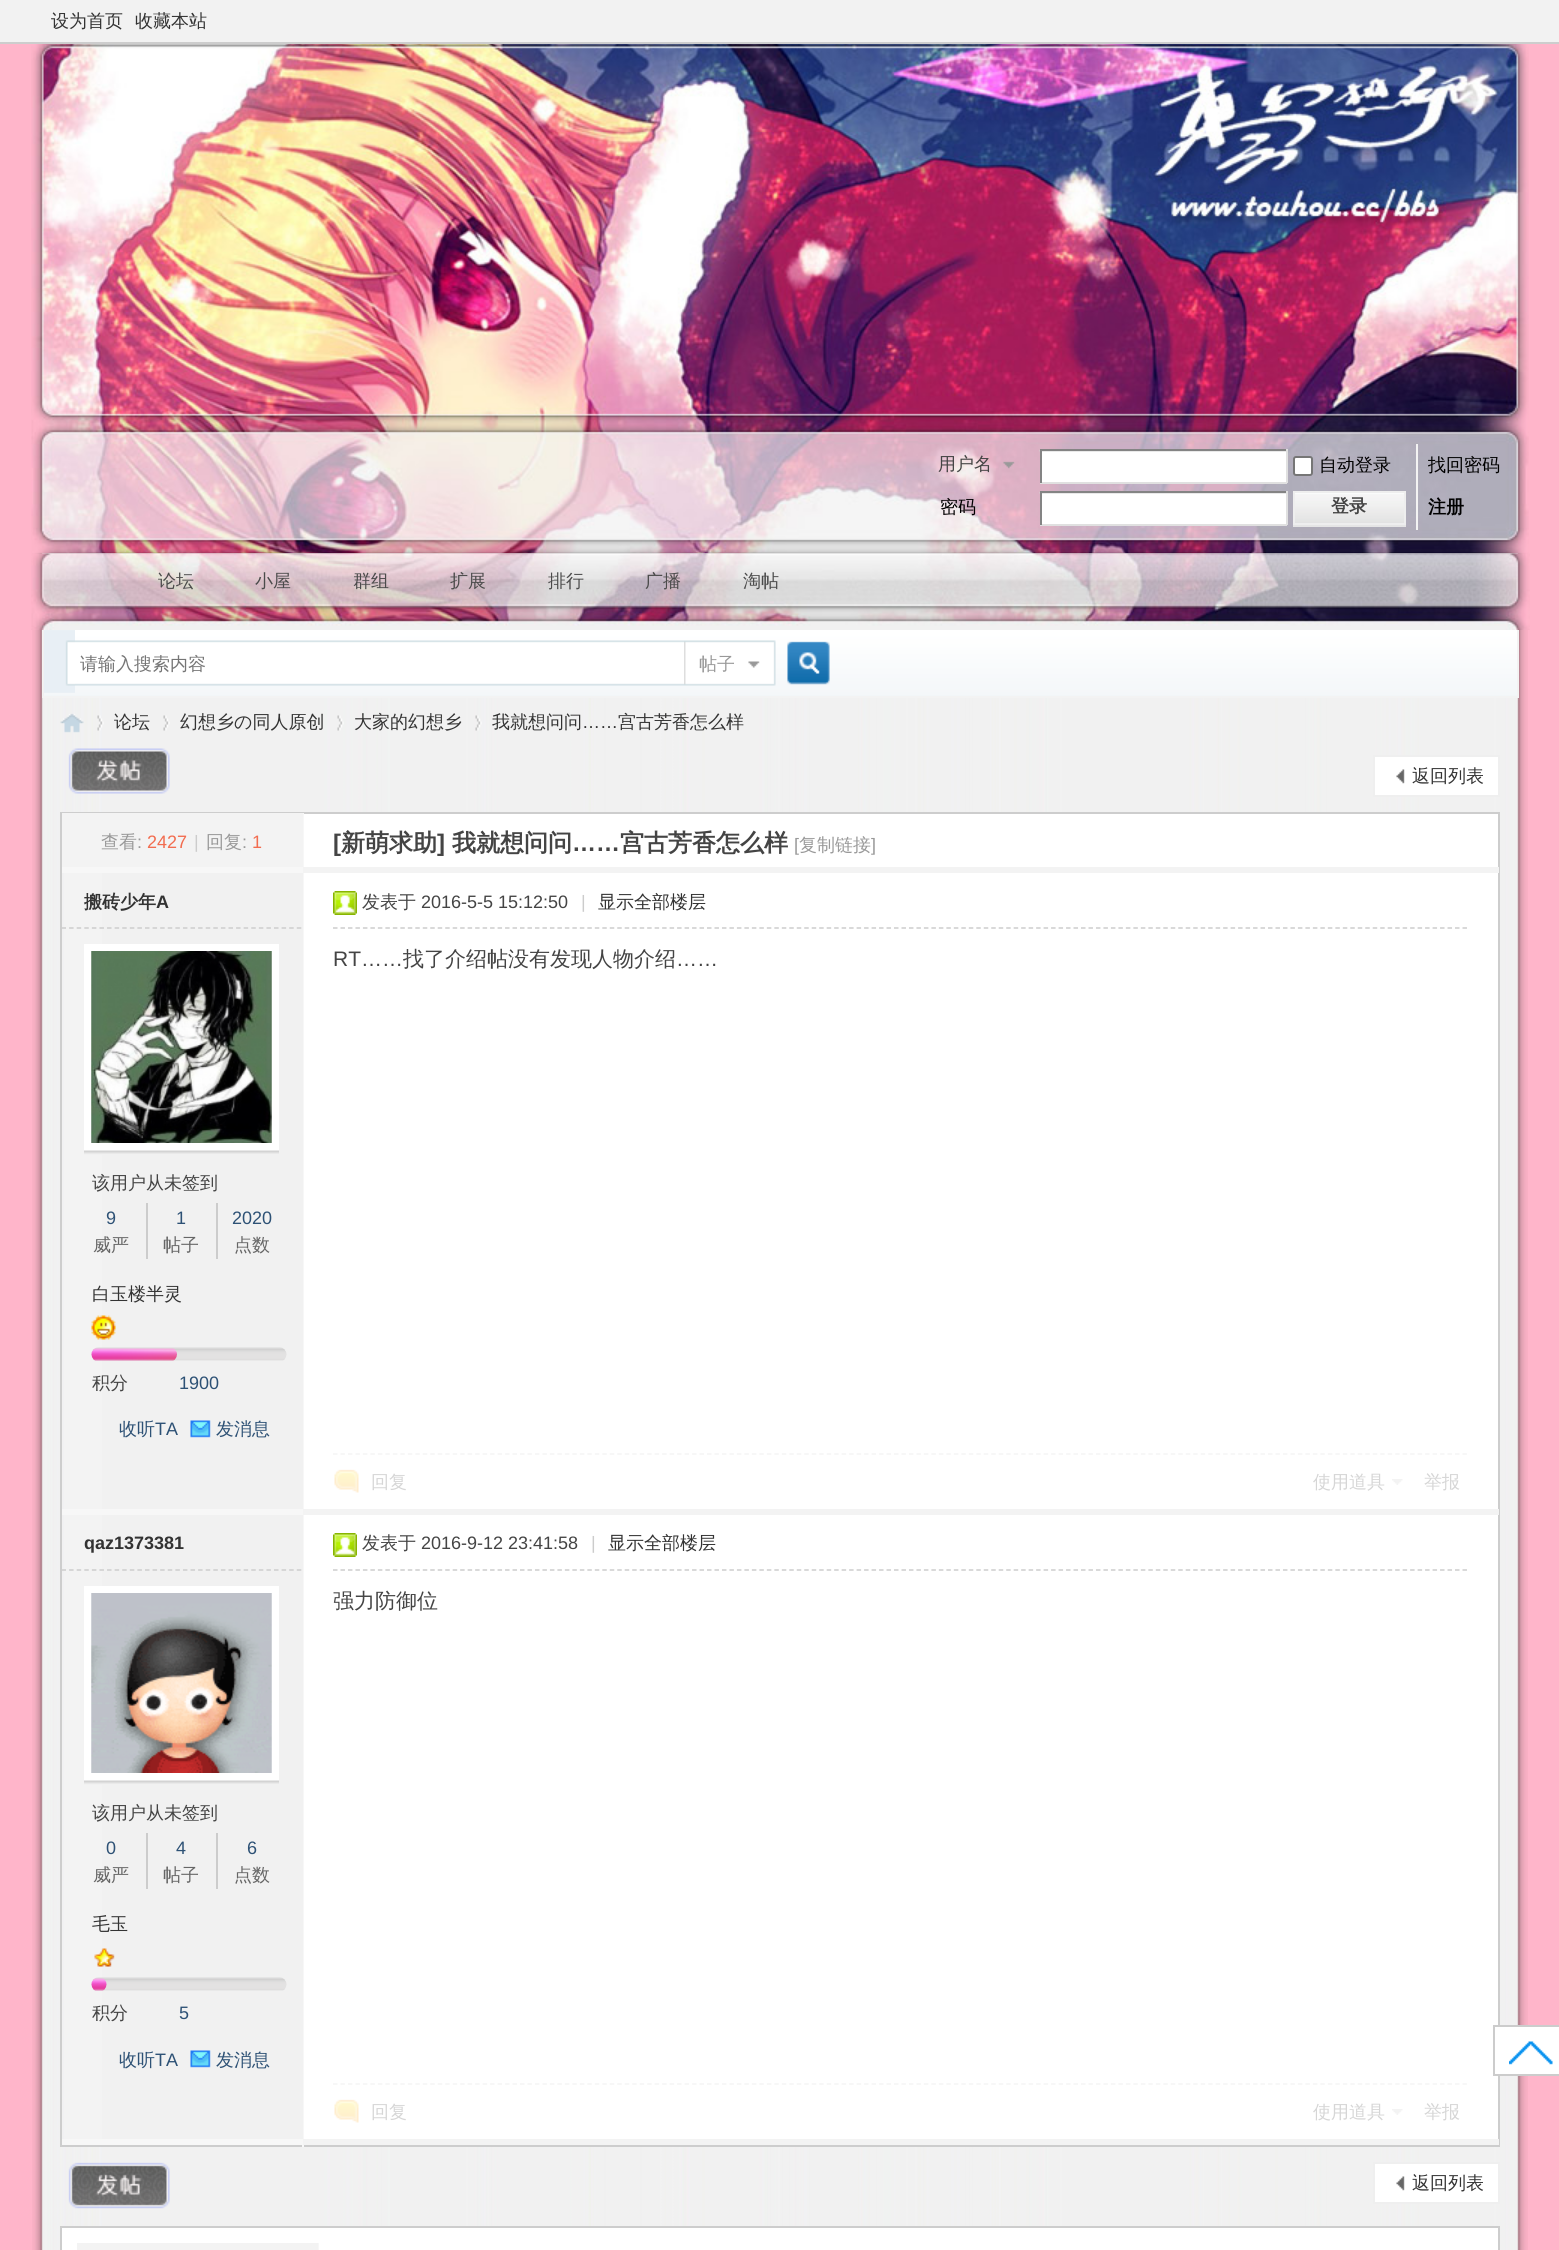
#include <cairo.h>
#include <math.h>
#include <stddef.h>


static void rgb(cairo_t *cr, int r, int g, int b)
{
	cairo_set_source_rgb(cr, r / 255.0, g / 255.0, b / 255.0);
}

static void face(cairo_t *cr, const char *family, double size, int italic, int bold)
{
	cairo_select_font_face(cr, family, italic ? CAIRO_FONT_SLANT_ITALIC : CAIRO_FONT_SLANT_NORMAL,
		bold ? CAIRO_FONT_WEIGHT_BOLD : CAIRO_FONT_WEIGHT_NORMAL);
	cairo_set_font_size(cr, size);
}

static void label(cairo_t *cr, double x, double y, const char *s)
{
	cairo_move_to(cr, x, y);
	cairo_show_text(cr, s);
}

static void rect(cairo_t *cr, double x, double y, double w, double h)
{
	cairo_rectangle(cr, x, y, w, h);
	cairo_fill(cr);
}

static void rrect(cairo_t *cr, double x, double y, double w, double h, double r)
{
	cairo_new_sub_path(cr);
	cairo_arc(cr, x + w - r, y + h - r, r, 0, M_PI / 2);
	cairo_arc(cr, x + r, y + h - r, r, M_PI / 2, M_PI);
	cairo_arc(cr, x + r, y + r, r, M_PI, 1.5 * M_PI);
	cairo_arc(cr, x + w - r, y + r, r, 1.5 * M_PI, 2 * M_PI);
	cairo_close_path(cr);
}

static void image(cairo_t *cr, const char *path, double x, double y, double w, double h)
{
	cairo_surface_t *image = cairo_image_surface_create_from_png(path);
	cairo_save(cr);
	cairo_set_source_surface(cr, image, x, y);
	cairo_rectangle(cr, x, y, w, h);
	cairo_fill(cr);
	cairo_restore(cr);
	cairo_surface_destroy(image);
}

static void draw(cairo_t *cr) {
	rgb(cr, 255, 181, 202);
	cairo_paint(cr);
	image(cr, "image0.png", 31, 44, 1498, 510);
	rgb(cr, 242, 242, 242);
	rect(cr, 0, 0, 1559, 42);
	rgb(cr, 205, 205, 205);
	rect(cr, 0, 42, 1559, 2);
	face(cr, "WenQuanYi Zen Hei Medium", 18, 0, 0);
	rgb(cr, 51, 51, 51);
	label(cr, 51, 27, "设为首页");
	label(cr, 135, 27, "收藏本站");
	image(cr, "image1.png", 1003, 461, 12, 8);
	rgb(cr, 68, 68, 68);
	label(cr, 938, 470, "用户名");
	rgb(cr, 255, 255, 255);
	rect(cr, 1042, 451, 244, 31);
	image(cr, "image2.png", 1039, 450, 247, 2);
	rgb(cr, 132, 132, 132);
	rect(cr, 1040, 449, 247, 2);
	rgb(cr, 224, 224, 224);
	rect(cr, 1286, 449, 2, 34);
	rect(cr, 1040, 482, 247, 2);
	rgb(cr, 132, 132, 132);
	rect(cr, 1040, 449, 2, 34);
	rgb(cr, 255, 255, 255);
	rrect(cr, 1294, 457, 18, 18, 2);
	cairo_fill_preserve(cr);
	rgb(cr, 118, 118, 118);
	cairo_stroke(cr);
	rgb(cr, 0, 0, 0);
	label(cr, 1319, 471, "自动登录");
	label(cr, 1428, 471, "找回密码");
	label(cr, 940, 513, "密码");
	rgb(cr, 255, 255, 255);
	rect(cr, 1042, 493, 244, 31);
	image(cr, "image3.png", 1039, 492, 247, 2);
	rgb(cr, 132, 132, 132);
	rect(cr, 1040, 491, 247, 2);
	rgb(cr, 224, 224, 224);
	rect(cr, 1286, 491, 2, 34);
	rect(cr, 1040, 524, 247, 2);
	rgb(cr, 132, 132, 132);
	rect(cr, 1040, 491, 2, 34);
	rgb(cr, 243, 243, 243);
	rect(cr, 1416, 444, 2, 86);
	rgb(cr, 229, 229, 229);
	cairo_new_path(cr);
	cairo_move_to(cr, 1293, 525);
	cairo_line_to(cr, 1293, 527);
	cairo_line_to(cr, 1406, 527);
	cairo_line_to(cr, 1406, 492);
	cairo_line_to(cr, 1406, 525);
	cairo_close_path(cr);
	cairo_fill(cr);
	image(cr, "image4.png", 1295, 493, 109, 30);
	cairo_rectangle(cr, 1294, 492, 111, 32);
	rgb(cr, 238, 238, 238);
	cairo_stroke(cr);
	face(cr, "WenQuanYi Zen Hei", 18, 0, 1);
	rgb(cr, 68, 68, 68);
	label(cr, 1331, 512, "登录");
	rgb(cr, 0, 0, 0);
	label(cr, 1428, 513, "注册");
	image(cr, "image5.png", 32, 553, 1496, 1697);
	image(cr, "image6.png", 31, 553, 1499, 77);
	face(cr, "WenQuanYi Zen Hei Medium", 18, 0, 0);
	rgb(cr, 75, 75, 75);
	label(cr, 158, 587, "论坛");
	label(cr, 255, 587, "小屋");
	label(cr, 353, 587, "群组");
	label(cr, 450, 587, "扩展");
	label(cr, 548, 587, "排行");
	label(cr, 645, 587, "广播");
	label(cr, 743, 587, "淘帖");
	image(cr, "image7.png", 44, 630, 1473, 66);
	rgb(cr, 243, 243, 243);
	rect(cr, 1517, 630, 2, 68);
	rect(cr, 42, 696, 1476, 2);
	rect(cr, 42, 630, 1, 68);
	image(cr, "image8.png", 44, 630, 31, 63);
	image(cr, "image9.png", 75, 640, 609, 46);
	rgb(cr, 117, 117, 117);
	label(cr, 80, 670, "请输入搜索内容");
	image(cr, "image10.png", 684, 640, 92, 46);
	rgb(cr, 153, 153, 153);
	label(cr, 699, 670, "帖子");
	image(cr, "image11.png", 787, 641, 43, 44);
	image(cr, "image12.png", 60, 713, 24, 20);
	image(cr, "image13.png", 97, 715, 7, 16);
	rgb(cr, 51, 51, 51);
	label(cr, 114, 728, "论坛");
	image(cr, "image14.png", 163, 715, 7, 16);
	label(cr, 180, 728, "幻想乡の同人原创");
	image(cr, "image15.png", 337, 715, 7, 16);
	label(cr, 354, 728, "大家的幻想乡");
	image(cr, "image16.png", 475, 715, 7, 16);
	label(cr, 492, 728, "我就想问问");
	face(cr, "Liberation Sans", 18, 0, 0);
	label(cr, 582, 728, "……");
	face(cr, "WenQuanYi Zen Hei Medium", 18, 0, 0);
	label(cr, 618, 728, "宫古芳香怎么样");
	image(cr, "image17.png", 68, 748, 102, 46);
	rgb(cr, 255, 255, 255);
	rect(cr, 1375, 757, 123, 38);
	image(cr, "image18.png", 1396, 769, 9, 15);
	cairo_rectangle(cr, 1374, 756, 125, 40);
	rgb(cr, 239, 239, 239);
	cairo_stroke(cr);
	rgb(cr, 51, 51, 51);
	label(cr, 1412, 782, "返回列表");
	rgb(cr, 255, 255, 255);
	rect(cr, 304, 814, 1194, 1325);
	cairo_rectangle(cr, 61, 813, 1438, 1333);
	rgb(cr, 205, 205, 205);
	cairo_stroke(cr);
	rgb(cr, 247, 247, 247);
	rect(cr, 303, 813, 1, 56);
	rgb(cr, 243, 243, 243);
	rect(cr, 62, 813, 241, 54);
	rgb(cr, 153, 153, 153);
	label(cr, 101, 848, "查看");
	face(cr, "Liberation Sans", 18, 0, 0);
	label(cr, 137, 848, ":");
	rgb(cr, 242, 108, 79);
	label(cr, 147, 848, "2427");
	rgb(cr, 204, 204, 204);
	label(cr, 194, 848, "|");
	face(cr, "WenQuanYi Zen Hei Medium", 18, 0, 0);
	rgb(cr, 153, 153, 153);
	label(cr, 206, 848, "回复");
	face(cr, "Liberation Sans", 18, 0, 0);
	label(cr, 242, 848, ":");
	rgb(cr, 242, 108, 79);
	label(cr, 252, 848, "1");
	face(cr, "Liberation Sans", 24, 0, 1);
	rgb(cr, 68, 68, 68);
	label(cr, 333, 851, "[");
	face(cr, "WenQuanYi Zen Hei", 24, 0, 1);
	label(cr, 341, 851, "新萌求助");
	face(cr, "Liberation Sans", 24, 0, 1);
	label(cr, 437, 851, "]");
	face(cr, "WenQuanYi Zen Hei", 24, 0, 1);
	label(cr, 452, 851, "我就想问问");
	face(cr, "Liberation Sans", 24, 0, 1);
	label(cr, 572, 851, "……");
	face(cr, "WenQuanYi Zen Hei", 24, 0, 1);
	label(cr, 620, 851, "宫古芳香怎么样");
	face(cr, "Liberation Sans", 18, 0, 0);
	rgb(cr, 153, 153, 153);
	label(cr, 794, 851, "[");
	face(cr, "WenQuanYi Zen Hei Medium", 18, 0, 0);
	label(cr, 799, 851, "复制链接");
	face(cr, "Liberation Sans", 18, 0, 0);
	label(cr, 871, 851, "]");
	rgb(cr, 247, 247, 247);
	rect(cr, 62, 867, 241, 6);
	rgb(cr, 243, 243, 243);
	rect(cr, 303, 867, 1196, 6);
	rect(cr, 64, 873, 38, 636);
	cairo_new_path(cr);
	cairo_move_to(cr, 61.5, 928);
	cairo_line_to(cr, 301.5, 928);
	rgb(cr, 205, 205, 205);
	cairo_set_line_width(cr, 1.5);
	cairo_set_dash(cr, (double[]){4.5, 3.09}, 2, 0);
	cairo_stroke(cr);
	face(cr, "WenQuanYi Zen Hei", 18, 0, 1);
	rgb(cr, 51, 51, 51);
	label(cr, 84, 908, "搬砖少年");
	face(cr, "Liberation Sans", 18, 0, 1);
	label(cr, 156, 908, "A");
	rgb(cr, 255, 255, 255);
	rect(cr, 84, 944, 195, 207);
	image(cr, "image19.png", 84, 951, 195, 204);
	image(cr, "image20.png", 91, 951, 181, 192);
	face(cr, "WenQuanYi Zen Hei Medium", 18, 0, 0);
	rgb(cr, 68, 68, 68);
	label(cr, 92, 1189, "该用户从未签到");
	rgb(cr, 204, 204, 204);
	rect(cr, 146, 1203, 2, 56);
	face(cr, "Liberation Sans", 18, 0, 0);
	rgb(cr, 45, 81, 117);
	label(cr, 106, 1224, "9");
	face(cr, "WenQuanYi Zen Hei Medium", 18, 0, 0);
	rgb(cr, 102, 102, 102);
	label(cr, 93, 1251, "威严");
	rgb(cr, 204, 204, 204);
	rect(cr, 216, 1203, 2, 56);
	face(cr, "Liberation Sans", 18, 0, 0);
	rgb(cr, 45, 81, 117);
	label(cr, 176, 1224, "1");
	face(cr, "WenQuanYi Zen Hei Medium", 18, 0, 0);
	rgb(cr, 102, 102, 102);
	label(cr, 163, 1251, "帖子");
	face(cr, "Liberation Sans", 18, 0, 0);
	rgb(cr, 45, 81, 117);
	label(cr, 232, 1224, "2020");
	face(cr, "WenQuanYi Zen Hei Medium", 18, 0, 0);
	rgb(cr, 102, 102, 102);
	label(cr, 234, 1251, "点数");
	rgb(cr, 51, 51, 51);
	label(cr, 92, 1300, "白玉楼半灵");
	image(cr, "image21.png", 91, 1315, 25, 25);
	image(cr, "image22.png", 91, 1347, 196, 14);
	image(cr, "image23.png", 91, 1348, 86, 13);
	rgb(cr, 68, 68, 68);
	label(cr, 92, 1389, "积分");
	face(cr, "Liberation Sans", 18, 0, 0);
	rgb(cr, 45, 81, 117);
	label(cr, 179, 1389, "1900");
	face(cr, "WenQuanYi Zen Hei Medium", 18, 0, 0);
	label(cr, 119, 1435, "收听");
	face(cr, "Liberation Sans", 18, 0, 0);
	label(cr, 155, 1435, "TA");
	image(cr, "image24.png", 190, 1420, 21, 18);
	face(cr, "WenQuanYi Zen Hei Medium", 18, 0, 0);
	label(cr, 216, 1435, "发消息");
	cairo_new_path(cr);
	cairo_move_to(cr, 333, 928);
	cairo_line_to(cr, 1468.5, 928);
	rgb(cr, 205, 205, 205);
	cairo_set_dash(cr, (double[]){4.5, 2.98}, 2, 0);
	cairo_stroke(cr);
	image(cr, "image25.png", 333, 891, 24, 24);
	rgb(cr, 68, 68, 68);
	label(cr, 362, 908, "发表于");
	face(cr, "Liberation Sans", 18, 0, 0);
	label(cr, 421, 908, "2016-5-5 15:12:50");
	rgb(cr, 204, 204, 204);
	label(cr, 581, 908, "|");
	face(cr, "WenQuanYi Zen Hei Medium", 18, 0, 0);
	rgb(cr, 51, 51, 51);
	label(cr, 598, 908, "显示全部楼层");
	face(cr, "Liberation Sans", 21, 0, 0);
	rgb(cr, 68, 68, 68);
	label(cr, 333, 966, "RT……");
	face(cr, "WenQuanYi Zen Hei Medium", 21, 0, 0);
	label(cr, 403, 966, "找了介绍帖没有发现人物介绍");
	face(cr, "Liberation Sans", 21, 0, 0);
	label(cr, 676, 966, "……");
	rgb(cr, 247, 247, 247);
	rect(cr, 303, 873, 1, 636);
	cairo_new_path(cr);
	cairo_move_to(cr, 333, 1454);
	cairo_line_to(cr, 1468.5, 1454);
	rgb(cr, 245, 245, 245);
	cairo_stroke(cr);
	image(cr, "image26.png", 334, 1469, 25, 24);
	face(cr, "WenQuanYi Zen Hei Medium", 18, 0, 0);
	rgb(cr, 214, 214, 214);
	label(cr, 371, 1488, "回复");
	label(cr, 1313, 1488, "使用道具");
	image(cr, "image27.png", 1392, 1479, 11, 6);
	label(cr, 1424, 1488, "举报");
	rgb(cr, 247, 247, 247);
	rect(cr, 62, 1509, 241, 6);
	rect(cr, 302, 2139, 2, 8);
	rect(cr, 303, 1514, 1, 627);
	rgb(cr, 243, 243, 243);
	rect(cr, 303, 1509, 1196, 6);
	rect(cr, 64, 1515, 38, 624);
	cairo_new_path(cr);
	cairo_move_to(cr, 61.5, 1570);
	cairo_line_to(cr, 301.5, 1570);
	rgb(cr, 205, 205, 205);
	cairo_set_dash(cr, (double[]){4.5, 3.09}, 2, 0);
	cairo_stroke(cr);
	face(cr, "Liberation Sans", 18, 0, 1);
	rgb(cr, 51, 51, 51);
	label(cr, 84, 1549, "qaz1373381");
	rgb(cr, 255, 255, 255);
	rect(cr, 84, 1586, 195, 195);
	image(cr, "image28.png", 84, 1593, 195, 192);
	image(cr, "image29.png", 91, 1593, 181, 180);
	face(cr, "WenQuanYi Zen Hei Medium", 18, 0, 0);
	rgb(cr, 68, 68, 68);
	label(cr, 92, 1819, "该用户从未签到");
	rgb(cr, 204, 204, 204);
	rect(cr, 146, 1833, 2, 56);
	face(cr, "Liberation Sans", 18, 0, 0);
	rgb(cr, 45, 81, 117);
	label(cr, 106, 1854, "0");
	face(cr, "WenQuanYi Zen Hei Medium", 18, 0, 0);
	rgb(cr, 102, 102, 102);
	label(cr, 93, 1881, "威严");
	rgb(cr, 204, 204, 204);
	rect(cr, 216, 1833, 2, 56);
	face(cr, "Liberation Sans", 18, 0, 0);
	rgb(cr, 45, 81, 117);
	label(cr, 176, 1854, "4");
	face(cr, "WenQuanYi Zen Hei Medium", 18, 0, 0);
	rgb(cr, 102, 102, 102);
	label(cr, 163, 1881, "帖子");
	face(cr, "Liberation Sans", 18, 0, 0);
	rgb(cr, 45, 81, 117);
	label(cr, 247, 1854, "6");
	face(cr, "WenQuanYi Zen Hei Medium", 18, 0, 0);
	rgb(cr, 102, 102, 102);
	label(cr, 234, 1881, "点数");
	rgb(cr, 51, 51, 51);
	label(cr, 92, 1930, "毛玉");
	image(cr, "image30.png", 94, 1948, 21, 19);
	image(cr, "image22.png", 91, 1977, 196, 14);
	image(cr, "image31.png", 91, 1978, 16, 13);
	rgb(cr, 68, 68, 68);
	label(cr, 92, 2019, "积分");
	face(cr, "Liberation Sans", 18, 0, 0);
	rgb(cr, 45, 81, 117);
	label(cr, 179, 2019, "5");
	face(cr, "WenQuanYi Zen Hei Medium", 18, 0, 0);
	label(cr, 119, 2066, "收听");
	face(cr, "Liberation Sans", 18, 0, 0);
	label(cr, 155, 2066, "TA");
	image(cr, "image24.png", 190, 2050, 21, 18);
	face(cr, "WenQuanYi Zen Hei Medium", 18, 0, 0);
	label(cr, 216, 2066, "发消息");
	cairo_new_path(cr);
	cairo_move_to(cr, 333, 1570);
	cairo_line_to(cr, 1468.5, 1570);
	rgb(cr, 205, 205, 205);
	cairo_set_dash(cr, (double[]){4.5, 2.98}, 2, 0);
	cairo_stroke(cr);
	image(cr, "image25.png", 333, 1533, 24, 24);
	rgb(cr, 68, 68, 68);
	label(cr, 362, 1549, "发表于");
	face(cr, "Liberation Sans", 18, 0, 0);
	label(cr, 421, 1549, "2016-9-12 23:41:58");
	rgb(cr, 204, 204, 204);
	label(cr, 591, 1549, "|");
	face(cr, "WenQuanYi Zen Hei Medium", 18, 0, 0);
	rgb(cr, 51, 51, 51);
	label(cr, 608, 1549, "显示全部楼层");
	face(cr, "WenQuanYi Zen Hei Medium", 21, 0, 0);
	rgb(cr, 68, 68, 68);
	label(cr, 333, 1608, "强力防御位");
	cairo_new_path(cr);
	cairo_move_to(cr, 333, 2084);
	cairo_line_to(cr, 1468.5, 2084);
	rgb(cr, 245, 245, 245);
	cairo_stroke(cr);
	image(cr, "image26.png", 334, 2099, 25, 24);
	face(cr, "WenQuanYi Zen Hei Medium", 18, 0, 0);
	rgb(cr, 214, 214, 214);
	label(cr, 371, 2118, "回复");
	label(cr, 1313, 2118, "使用道具");
	image(cr, "image27.png", 1392, 2109, 11, 6);
	label(cr, 1424, 2118, "举报");
	rgb(cr, 247, 247, 247);
	rect(cr, 62, 2139, 241, 6);
	rgb(cr, 243, 243, 243);
	rect(cr, 303, 2139, 1196, 6);
	image(cr, "image32.png", 68, 2162, 102, 47);
	rgb(cr, 255, 255, 255);
	rect(cr, 1375, 2164, 123, 38);
	image(cr, "image18.png", 1396, 2176, 9, 15);
	cairo_rectangle(cr, 1374, 2163, 125, 40);
	rgb(cr, 239, 239, 239);
	cairo_set_line_width(cr, 2);
	cairo_set_dash(cr, NULL, 0, 0);
	cairo_stroke(cr);
	rgb(cr, 51, 51, 51);
	label(cr, 1412, 2189, "返回列表");
	rgb(cr, 255, 255, 255);
	cairo_rectangle(cr, 61, 2227, 1438, 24);
	cairo_fill_preserve(cr);
	rgb(cr, 205, 205, 205);
	cairo_stroke(cr);
	rgb(cr, 247, 247, 247);
	rect(cr, 318, 2243, 1, 7);
	rgb(cr, 243, 243, 243);
	rect(cr, 77, 2243, 241, 7);
	rgb(cr, 255, 255, 255);
	rect(cr, 1498, 2027, 61, 47);
	cairo_rectangle(cr, 1494, 2026, 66, 49);
	rgb(cr, 204, 204, 204);
	cairo_stroke(cr);
	image(cr, "image33.png", 1509, 2041, 44, 24);
}

int main(void) {
	cairo_surface_t *surface = cairo_image_surface_create(CAIRO_FORMAT_RGB24, 1559, 2250);
	cairo_t *cr = cairo_create(surface);
	cairo_font_options_t *options = cairo_font_options_create();
	cairo_font_options_set_hint_metrics(options, CAIRO_HINT_METRICS_OFF);
	cairo_font_options_set_hint_style(options, CAIRO_HINT_STYLE_NONE);
	cairo_set_font_options(cr, options);
	cairo_set_miter_limit(cr, 4);
	draw(cr);
	cairo_surface_write_to_png(surface, "render.png");
	cairo_font_options_destroy(options);
	cairo_destroy(cr);
	cairo_surface_destroy(surface);
	return 0;
}
